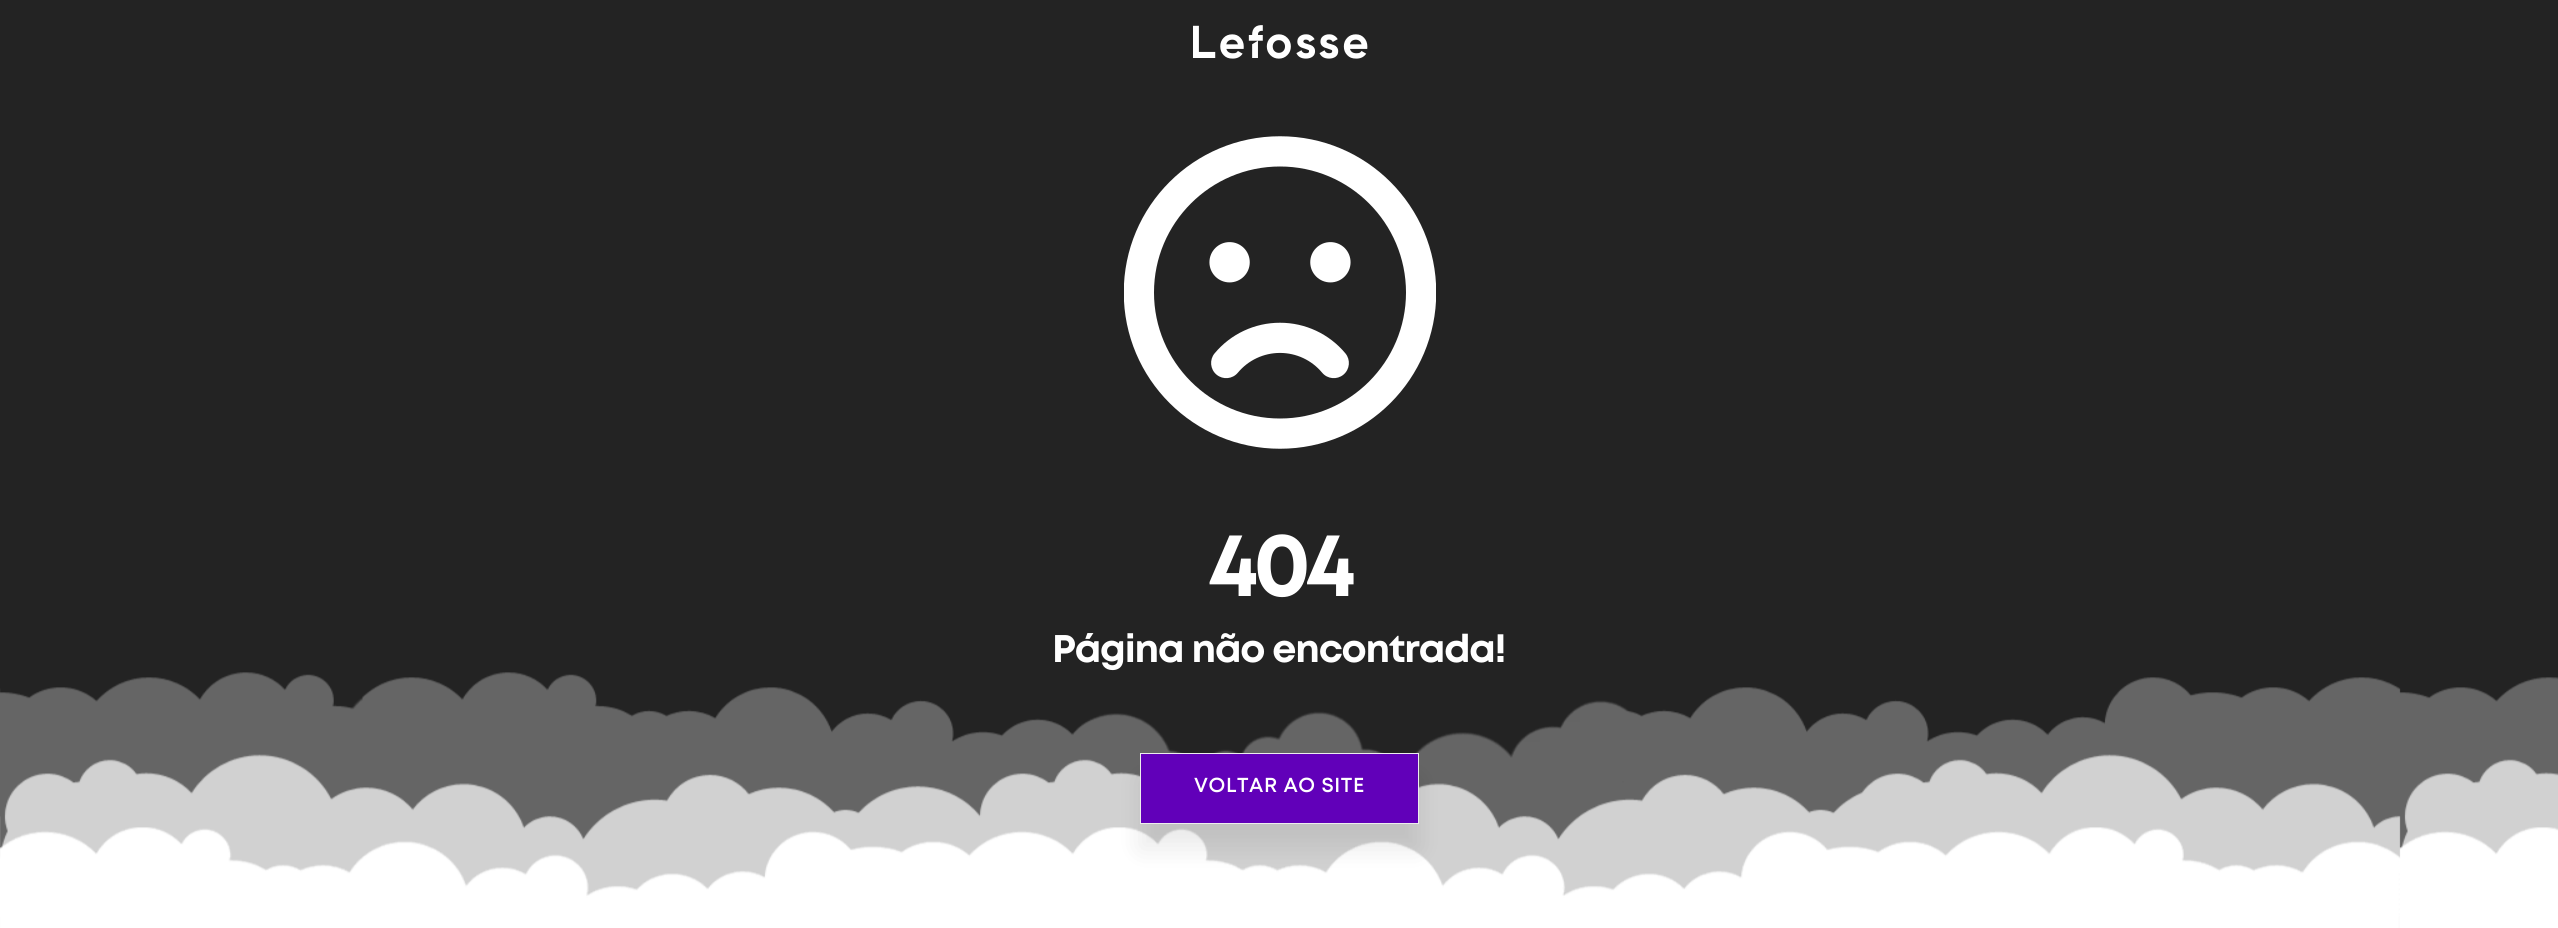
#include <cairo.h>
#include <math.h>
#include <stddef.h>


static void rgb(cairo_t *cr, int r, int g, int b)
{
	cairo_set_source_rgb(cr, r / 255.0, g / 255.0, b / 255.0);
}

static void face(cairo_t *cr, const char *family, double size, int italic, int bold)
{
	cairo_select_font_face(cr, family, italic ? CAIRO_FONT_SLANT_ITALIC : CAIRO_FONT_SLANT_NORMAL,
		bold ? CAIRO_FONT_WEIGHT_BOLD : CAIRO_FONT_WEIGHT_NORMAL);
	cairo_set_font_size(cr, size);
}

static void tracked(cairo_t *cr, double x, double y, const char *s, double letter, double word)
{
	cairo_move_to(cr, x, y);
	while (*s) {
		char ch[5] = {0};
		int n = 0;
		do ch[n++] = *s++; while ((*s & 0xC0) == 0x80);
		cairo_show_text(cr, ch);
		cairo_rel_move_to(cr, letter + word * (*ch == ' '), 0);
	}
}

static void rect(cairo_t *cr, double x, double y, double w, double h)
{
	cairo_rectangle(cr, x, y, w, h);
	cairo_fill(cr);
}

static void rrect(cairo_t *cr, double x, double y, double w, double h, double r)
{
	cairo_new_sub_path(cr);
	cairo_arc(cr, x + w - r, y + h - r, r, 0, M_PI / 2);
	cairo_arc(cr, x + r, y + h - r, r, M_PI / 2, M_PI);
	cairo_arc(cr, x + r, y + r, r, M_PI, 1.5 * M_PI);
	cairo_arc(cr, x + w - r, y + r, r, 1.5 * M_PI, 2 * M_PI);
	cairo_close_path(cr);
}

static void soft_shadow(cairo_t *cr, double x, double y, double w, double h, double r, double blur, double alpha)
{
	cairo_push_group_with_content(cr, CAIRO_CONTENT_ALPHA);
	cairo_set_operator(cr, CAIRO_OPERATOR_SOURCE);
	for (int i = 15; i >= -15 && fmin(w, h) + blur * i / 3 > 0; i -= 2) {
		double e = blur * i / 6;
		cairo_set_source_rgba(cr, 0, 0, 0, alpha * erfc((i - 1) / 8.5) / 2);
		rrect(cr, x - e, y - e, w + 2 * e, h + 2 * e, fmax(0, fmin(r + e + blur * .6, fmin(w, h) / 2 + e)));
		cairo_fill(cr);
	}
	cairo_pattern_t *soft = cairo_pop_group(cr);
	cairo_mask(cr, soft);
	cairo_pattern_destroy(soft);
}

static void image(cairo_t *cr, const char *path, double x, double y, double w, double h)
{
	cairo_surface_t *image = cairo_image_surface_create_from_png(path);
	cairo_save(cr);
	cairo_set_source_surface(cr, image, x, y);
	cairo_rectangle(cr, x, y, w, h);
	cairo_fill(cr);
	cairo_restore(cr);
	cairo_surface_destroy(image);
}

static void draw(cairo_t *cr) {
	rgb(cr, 35, 35, 35);
	cairo_paint(cr);
	image(cr, "image0.png", 1193, 25, 175, 34);
	image(cr, "image1.png", 1124, 136, 312, 313);
	face(cr, "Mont", 91, 0, 1);
	rgb(cr, 255, 255, 255);
	tracked(cr, 1208, 596, "404", -5.5, 0);
	face(cr, "Mont", 38.5, 0, 1);
	tracked(cr, 1052, 662, "Página não encontrada!", -1.2, 0);
	image(cr, "image2.png", 0, 672, 2558, 256);
	rgb(cr, 0, 0, 0);
	soft_shadow(cr, 1140, 778, 279, 71, 0, 12.5, 0.08);
	cairo_rectangle(cr, 1140.5, 753.5, 278, 70);
	rgb(cr, 237, 237, 237);
	cairo_set_line_width(cr, 1);
	cairo_stroke(cr);
	rgb(cr, 97, 0, 185);
	rect(cr, 1141, 754, 277, 69);
	face(cr, "Mont SemiBold", 20.25, 0, 0);
	rgb(cr, 255, 255, 255);
	tracked(cr, 1194, 792, "VOLTAR AO SITE", 0.6, 0);
}

int main(void) {
	cairo_surface_t *surface = cairo_image_surface_create(CAIRO_FORMAT_RGB24, 2558, 928);
	cairo_t *cr = cairo_create(surface);
	cairo_font_options_t *options = cairo_font_options_create();
	cairo_font_options_set_hint_metrics(options, CAIRO_HINT_METRICS_OFF);
	cairo_font_options_set_hint_style(options, CAIRO_HINT_STYLE_NONE);
	cairo_set_font_options(cr, options);
	cairo_set_miter_limit(cr, 4);
	draw(cr);
	cairo_surface_write_to_png(surface, "render.png");
	cairo_font_options_destroy(options);
	cairo_destroy(cr);
	cairo_surface_destroy(surface);
	return 0;
}
